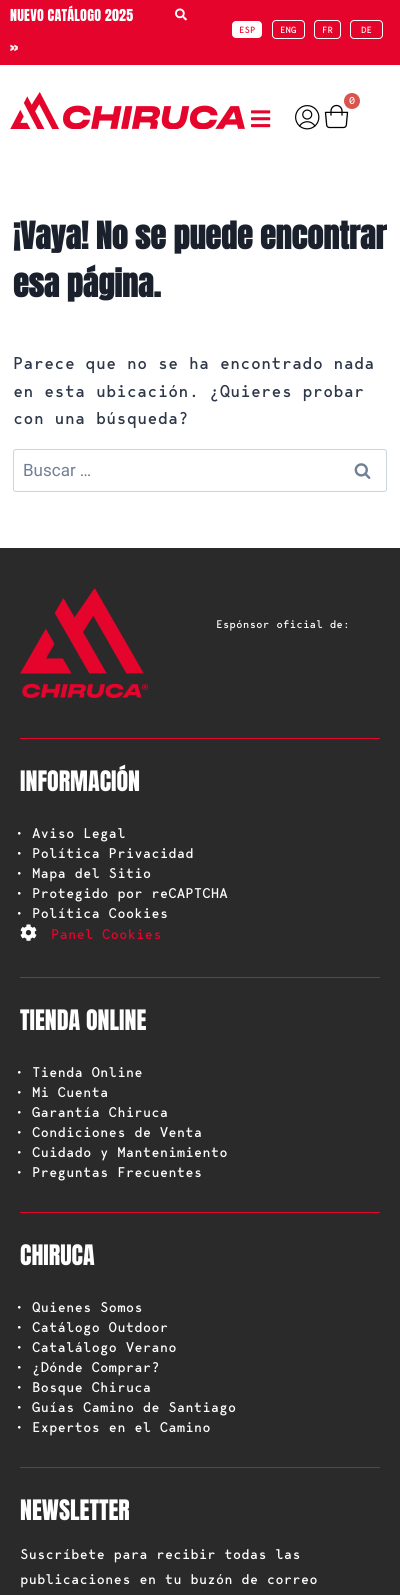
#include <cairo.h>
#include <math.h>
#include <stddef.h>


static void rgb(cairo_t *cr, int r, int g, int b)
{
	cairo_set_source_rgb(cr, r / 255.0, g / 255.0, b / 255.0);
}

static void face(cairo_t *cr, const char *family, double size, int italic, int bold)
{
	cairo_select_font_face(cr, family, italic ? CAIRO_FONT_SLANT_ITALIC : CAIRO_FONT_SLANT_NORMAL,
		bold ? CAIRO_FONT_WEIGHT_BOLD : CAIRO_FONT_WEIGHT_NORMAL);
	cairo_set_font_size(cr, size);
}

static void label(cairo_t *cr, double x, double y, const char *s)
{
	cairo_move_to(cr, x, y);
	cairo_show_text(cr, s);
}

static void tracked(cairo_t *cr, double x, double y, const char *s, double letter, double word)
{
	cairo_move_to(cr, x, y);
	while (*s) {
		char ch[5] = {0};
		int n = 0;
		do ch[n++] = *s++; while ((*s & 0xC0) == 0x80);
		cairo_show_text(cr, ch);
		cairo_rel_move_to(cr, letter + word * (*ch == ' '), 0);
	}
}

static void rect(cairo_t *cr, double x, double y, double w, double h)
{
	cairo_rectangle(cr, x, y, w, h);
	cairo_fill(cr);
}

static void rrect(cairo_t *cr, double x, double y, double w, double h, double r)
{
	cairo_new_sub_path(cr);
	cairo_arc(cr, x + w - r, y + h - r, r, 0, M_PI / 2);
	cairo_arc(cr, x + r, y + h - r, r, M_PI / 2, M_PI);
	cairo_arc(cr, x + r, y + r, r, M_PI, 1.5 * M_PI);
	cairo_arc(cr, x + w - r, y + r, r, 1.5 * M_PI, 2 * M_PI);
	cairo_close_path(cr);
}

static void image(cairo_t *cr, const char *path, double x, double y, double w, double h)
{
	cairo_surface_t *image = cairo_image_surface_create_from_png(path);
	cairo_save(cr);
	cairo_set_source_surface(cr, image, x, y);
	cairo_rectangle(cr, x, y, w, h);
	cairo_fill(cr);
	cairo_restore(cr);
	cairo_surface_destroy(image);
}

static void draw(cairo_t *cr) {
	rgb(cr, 255, 255, 255);
	cairo_paint(cr);
	rgb(cr, 228, 4, 44);
	rect(cr, 0, 0, 400, 65);
	face(cr, "Anton", 14, 0, 0);
	rgb(cr, 255, 255, 255);
	tracked(cr, 10, 21, "NUEVO CATÁLOGO 2025", 0.25, 0);
	tracked(cr, 10, 53, "»", 0.25, 0);
	image(cr, "image0.png", 175, 8, 12, 13);
	rrect(cr, 232, 21, 30, 17, 4);
	cairo_fill(cr);
	face(cr, "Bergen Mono", 9, 0, 0);
	rgb(cr, 228, 4, 44);
	label(cr, 239, 33, "ESP");
	rrect(cr, 272.5, 20.5, 32, 18, 3.5);
	rgb(cr, 255, 255, 255);
	cairo_set_line_width(cr, 1);
	cairo_stroke(cr);
	label(cr, 280, 33, "ENG");
	rrect(cr, 314.5, 20.5, 26, 18, 3.5);
	cairo_stroke(cr);
	label(cr, 322, 33, "FR");
	rrect(cr, 350.5, 20.5, 32, 18, 3.5);
	cairo_stroke(cr);
	label(cr, 361, 33, "DE");
	image(cr, "image1.png", 10, 92, 235, 37);
	image(cr, "image2.png", 324, 104, 25, 25);
	rgb(cr, 217, 83, 79);
	cairo_arc(cr, 352, 101, 8, 0, 2 * M_PI);
	cairo_fill(cr);
	face(cr, "Bergen Mono", 10, 0, 0);
	rgb(cr, 255, 255, 255);
	label(cr, 349, 104, "0");
	image(cr, "image3.png", 251, 110, 20, 18);
	image(cr, "image4.png", 295, 105, 25, 25);
	face(cr, "Anton", 32, 0, 1);
	rgb(cr, 26, 32, 44);
	label(cr, 13, 249, "¡Vaya! No se puede encontrar");
	label(cr, 13, 297, "esa página.");
	face(cr, "Bergen Mono", 17, 0, 0);
	rgb(cr, 45, 55, 72);
	label(cr, 13, 369, "Parece que no se ha encontrado nada");
	label(cr, 13, 397, "en esta ubicación. ¿Quieres probar");
	label(cr, 13, 424, "con una búsqueda?");
	rrect(cr, 13.5, 449.5, 373, 42, 2.5);
	rgb(cr, 203, 213, 224);
	cairo_stroke(cr);
	face(cr, "Roboto", 17, 0, 0);
	rgb(cr, 113, 128, 150);
	label(cr, 23, 476, "Buscar …");
	image(cr, "image5.png", 354, 463, 17, 16);
	rgb(cr, 42, 42, 42);
	rect(cr, 0, 548, 400, 1047);
	image(cr, "image6.png", 20, 588, 128, 110);
	face(cr, "Bergen Mono", 11, 0, 0);
	rgb(cr, 255, 255, 255);
	label(cr, 216, 628, "Espónsor oficial de:");
	rgb(cr, 228, 4, 44);
	rect(cr, 20, 738, 360, 1);
	face(cr, "Anton", 24, 0, 0);
	rgb(cr, 255, 255, 255);
	label(cr, 20, 791, "INFORMACIÓN");
	face(cr, "Bergen Mono", 14, 0, 0);
	label(cr, 15, 838, "• Aviso Legal");
	label(cr, 15, 858, "• Política Privacidad");
	label(cr, 15, 878, "• Mapa del Sitio");
	label(cr, 15, 898, "• Protegido por reCAPTCHA");
	label(cr, 15, 918, "• Política Cookies");
	image(cr, "image7.png", 20, 924, 17, 17);
	rgb(cr, 228, 4, 44);
	label(cr, 51, 939, "Panel Cookies");
	rect(cr, 20, 977, 360, 1);
	face(cr, "Anton", 24, 0, 0);
	rgb(cr, 255, 255, 255);
	label(cr, 20, 1030, "TIENDA ONLINE");
	face(cr, "Bergen Mono", 14, 0, 0);
	label(cr, 15, 1077, "• Tienda Online");
	label(cr, 15, 1097, "• Mi Cuenta");
	label(cr, 15, 1117, "• Garantía Chiruca");
	label(cr, 15, 1137, "• Condiciones de Venta");
	label(cr, 15, 1157, "• Cuidado y Mantenimiento");
	label(cr, 15, 1177, "• Preguntas Frecuentes");
	rgb(cr, 228, 4, 44);
	rect(cr, 20, 1212, 360, 1);
	face(cr, "Anton", 24, 0, 0);
	rgb(cr, 255, 255, 255);
	label(cr, 20, 1265, "CHIRUCA");
	face(cr, "Bergen Mono", 14, 0, 0);
	label(cr, 15, 1312, "• Quienes Somos");
	label(cr, 15, 1332, "• Catálogo Outdoor");
	label(cr, 15, 1352, "• Catalálogo Verano");
	label(cr, 15, 1372, "• ¿Dónde Comprar?");
	label(cr, 15, 1392, "• Bosque Chiruca");
	label(cr, 15, 1412, "• Guías Camino de Santiago");
	label(cr, 15, 1432, "• Expertos en el Camino");
	rgb(cr, 228, 4, 44);
	rect(cr, 20, 1467, 360, 1);
	face(cr, "Anton", 24, 0, 0);
	rgb(cr, 255, 255, 255);
	label(cr, 20, 1520, "NEWSLETTER");
	face(cr, "Bergen Mono", 14, 0, 0);
	label(cr, 20, 1559, "Suscríbete para recibir todas las");
	label(cr, 20, 1584, "publicaciones en tu buzón de correo");
}

int main(void) {
	cairo_surface_t *surface = cairo_image_surface_create(CAIRO_FORMAT_RGB24, 400, 1595);
	cairo_t *cr = cairo_create(surface);
	cairo_font_options_t *options = cairo_font_options_create();
	cairo_font_options_set_hint_metrics(options, CAIRO_HINT_METRICS_OFF);
	cairo_font_options_set_hint_style(options, CAIRO_HINT_STYLE_NONE);
	cairo_set_font_options(cr, options);
	cairo_set_miter_limit(cr, 4);
	draw(cr);
	cairo_surface_write_to_png(surface, "render.png");
	cairo_font_options_destroy(options);
	cairo_destroy(cr);
	cairo_surface_destroy(surface);
	return 0;
}
